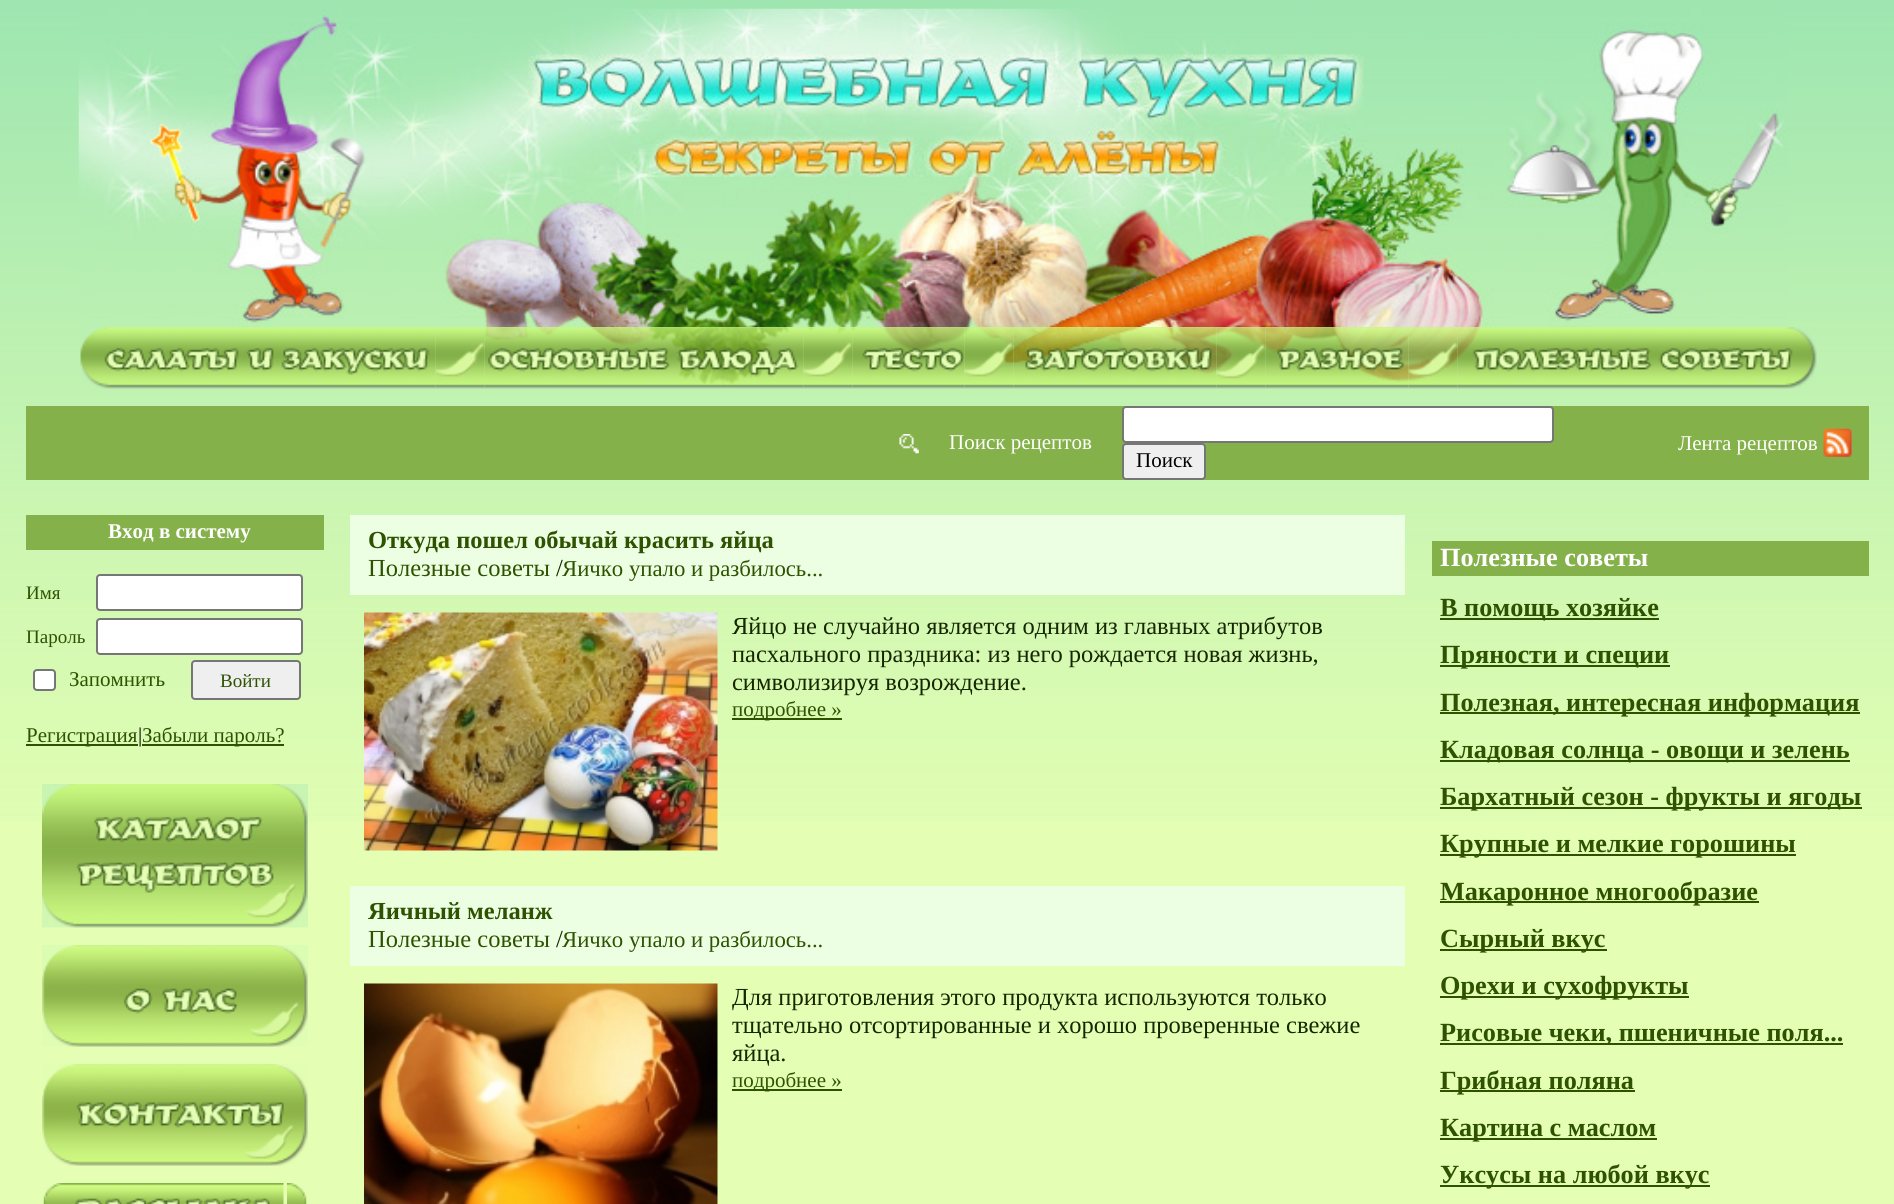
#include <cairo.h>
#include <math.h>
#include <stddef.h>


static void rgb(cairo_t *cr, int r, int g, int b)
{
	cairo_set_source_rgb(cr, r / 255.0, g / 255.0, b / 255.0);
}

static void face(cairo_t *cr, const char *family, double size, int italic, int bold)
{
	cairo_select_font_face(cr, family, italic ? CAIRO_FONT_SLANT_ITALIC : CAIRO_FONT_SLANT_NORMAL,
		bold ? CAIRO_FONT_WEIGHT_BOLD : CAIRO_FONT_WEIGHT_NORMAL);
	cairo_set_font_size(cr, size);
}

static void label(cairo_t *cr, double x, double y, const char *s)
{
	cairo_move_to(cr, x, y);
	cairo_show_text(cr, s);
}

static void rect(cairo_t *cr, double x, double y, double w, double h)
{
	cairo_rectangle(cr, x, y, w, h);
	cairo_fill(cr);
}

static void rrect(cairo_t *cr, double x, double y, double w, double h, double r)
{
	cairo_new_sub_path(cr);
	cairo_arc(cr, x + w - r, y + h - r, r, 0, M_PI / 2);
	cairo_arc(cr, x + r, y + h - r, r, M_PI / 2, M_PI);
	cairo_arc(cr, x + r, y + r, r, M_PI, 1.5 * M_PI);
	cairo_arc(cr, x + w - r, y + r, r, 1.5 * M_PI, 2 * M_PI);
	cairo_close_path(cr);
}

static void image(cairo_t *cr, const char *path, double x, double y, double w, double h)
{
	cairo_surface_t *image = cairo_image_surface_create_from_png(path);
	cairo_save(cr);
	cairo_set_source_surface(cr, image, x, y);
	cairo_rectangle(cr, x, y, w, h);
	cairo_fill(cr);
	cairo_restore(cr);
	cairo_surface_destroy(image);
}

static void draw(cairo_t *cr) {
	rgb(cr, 228, 255, 179);
	cairo_paint(cr);
	image(cr, "image0.png", 0, 0, 1894, 822);
	image(cr, "image1.png", 78, 8, 1709, 320);
	image(cr, "image2.png", 528, 54, 836, 123);
	cairo_set_source_rgba(cr, 0.729, 0.937, 0.694, 0.75);
	rect(cr, 486, 327, 995, 1);
	image(cr, "image3.png", 80, 327, 356, 62);
	image(cr, "image4.png", 435, 327, 50, 62);
	image(cr, "image5.png", 484, 327, 320, 62);
	image(cr, "image6.png", 803, 327, 50, 62);
	image(cr, "image7.png", 852, 327, 113, 62);
	image(cr, "image8.png", 964, 327, 50, 62);
	image(cr, "image9.png", 1013, 327, 204, 62);
	image(cr, "image10.png", 1216, 327, 50, 62);
	image(cr, "image11.png", 1265, 327, 144, 62);
	image(cr, "image12.png", 1408, 327, 50, 62);
	image(cr, "image13.png", 1457, 327, 360, 62);
	rgb(cr, 132, 177, 74);
	rect(cr, 26, 406, 1843, 74);
	image(cr, "image14.png", 899, 434, 20, 20);
	face(cr, "Liberation Serif", 21, 0, 0);
	rgb(cr, 255, 255, 255);
	label(cr, 949, 449, "Поиск рецептов");
	label(cr, 1678, 450, "Лента рецептов");
	image(cr, "image15.png", 1823, 428, 29, 29);
	rrect(cr, 1123, 407, 430, 35, 3);
	cairo_fill_preserve(cr);
	rgb(cr, 118, 118, 118);
	cairo_stroke(cr);
	rgb(cr, 239, 239, 239);
	rrect(cr, 1123, 444, 82, 35, 3);
	cairo_fill_preserve(cr);
	rgb(cr, 118, 118, 118);
	cairo_stroke(cr);
	rgb(cr, 0, 0, 0);
	label(cr, 1136, 467, "Поиск");
	rgb(cr, 132, 177, 74);
	rect(cr, 26, 515, 298, 35);
	face(cr, "Liberation Serif", 21, 0, 1);
	rgb(cr, 255, 255, 255);
	label(cr, 108, 538, "Вход в систему");
	face(cr, "Liberation Serif", 19, 0, 0);
	rgb(cr, 46, 82, 0);
	label(cr, 26, 599, "Имя");
	rgb(cr, 255, 255, 255);
	rrect(cr, 97, 575, 205, 35, 3);
	cairo_fill_preserve(cr);
	rgb(cr, 118, 118, 118);
	cairo_stroke(cr);
	rgb(cr, 46, 82, 0);
	label(cr, 26, 643, "Пароль");
	rgb(cr, 255, 255, 255);
	rrect(cr, 97, 619, 205, 35, 3);
	cairo_fill_preserve(cr);
	rgb(cr, 118, 118, 118);
	cairo_stroke(cr);
	rgb(cr, 255, 255, 255);
	rrect(cr, 34, 670, 21, 20, 3);
	cairo_fill_preserve(cr);
	rgb(cr, 118, 118, 118);
	cairo_stroke(cr);
	face(cr, "Liberation Serif", 21, 0, 0);
	rgb(cr, 46, 82, 0);
	label(cr, 69, 686, "Запомнить");
	rgb(cr, 239, 239, 239);
	rrect(cr, 192, 661, 108, 38, 3);
	cairo_fill_preserve(cr);
	rgb(cr, 118, 118, 118);
	cairo_stroke(cr);
	face(cr, "Liberation Serif", 19, 0, 0);
	rgb(cr, 46, 82, 0);
	label(cr, 220, 687, "Войти");
	rect(cr, 26, 744, 112, 2);
	face(cr, "Liberation Serif", 21, 0, 0);
	label(cr, 26, 742, "Регистрация");
	rgb(cr, 0, 0, 0);
	label(cr, 138, 742, "|");
	rgb(cr, 46, 82, 0);
	rect(cr, 142, 744, 142, 2);
	label(cr, 142, 742, "Забыли пароль?");
	image(cr, "image16.png", 42, 784, 266, 144);
	image(cr, "image17.png", 42, 945, 266, 102);
	image(cr, "image18.png", 42, 1064, 266, 102);
	image(cr, "image19.png", 43, 1183, 20, 21);
	image(cr, "image20.png", 63, 1183, 221, 21);
	image(cr, "image21.png", 287, 1183, 20, 21);
	rgb(cr, 237, 255, 227);
	rect(cr, 350, 515, 1055, 80);
	face(cr, "Liberation Serif", 24.5, 0, 1);
	rgb(cr, 46, 82, 0);
	label(cr, 368, 548, "Откуда пошел обычай красить яйца");
	face(cr, "Liberation Serif", 24.5, 0, 0);
	label(cr, 368, 576, "Полезные советы");
	rgb(cr, 21, 38, 0);
	label(cr, 556, 576, "/");
	face(cr, "Liberation Serif", 22.75, 0, 0);
	rgb(cr, 46, 82, 0);
	label(cr, 562, 576, "Яичко упало и разбилось...");
	image(cr, "image22.png", 364, 612, 354, 239);
	face(cr, "Liberation Serif", 24.5, 0, 0);
	rgb(cr, 21, 38, 0);
	label(cr, 732, 634, "Яйцо не случайно является одним из главных атрибутов");
	label(cr, 732, 662, "пасхального праздника: из него рождается новая жизнь,");
	label(cr, 732, 690, "символизируя возрождение.");
	rgb(cr, 46, 82, 0);
	rect(cr, 732, 718, 110, 2);
	face(cr, "Liberation Serif", 21, 0, 0);
	label(cr, 732, 716, "подробнее »");
	rgb(cr, 237, 255, 227);
	rect(cr, 350, 886, 1055, 80);
	face(cr, "Liberation Serif", 24.5, 0, 1);
	rgb(cr, 46, 82, 0);
	label(cr, 368, 919, "Яичный меланж");
	face(cr, "Liberation Serif", 24.5, 0, 0);
	label(cr, 368, 947, "Полезные советы");
	rgb(cr, 21, 38, 0);
	label(cr, 556, 947, "/");
	face(cr, "Liberation Serif", 22.75, 0, 0);
	rgb(cr, 46, 82, 0);
	label(cr, 562, 947, "Яичко упало и разбилось...");
	image(cr, "image23.png", 364, 983, 354, 221);
	face(cr, "Liberation Serif", 24.5, 0, 0);
	rgb(cr, 21, 38, 0);
	label(cr, 732, 1005, "Для приготовления этого продукта используются только");
	label(cr, 732, 1033, "тщательно отсортированные и хорошо проверенные свежие");
	label(cr, 732, 1061, "яйца.");
	rgb(cr, 46, 82, 0);
	rect(cr, 732, 1089, 110, 2);
	face(cr, "Liberation Serif", 21, 0, 0);
	label(cr, 732, 1087, "подробнее »");
	rgb(cr, 132, 177, 74);
	rect(cr, 1432, 541, 437, 35);
	face(cr, "Liberation Serif", 26.25, 0, 1);
	rgb(cr, 255, 255, 255);
	label(cr, 1440, 566, "Полезные советы");
	rgb(cr, 46, 82, 0);
	rect(cr, 1440, 618, 219, 2);
	label(cr, 1440, 616, "В помощь хозяйке");
	rect(cr, 1440, 665, 230, 2);
	label(cr, 1440, 663, "Пряности и специи");
	rect(cr, 1440, 712, 420, 2);
	label(cr, 1440, 711, "Полезная, интересная информация");
	rect(cr, 1440, 760, 410, 2);
	label(cr, 1440, 758, "Кладовая солнца - овощи и зелень");
	rect(cr, 1440, 807, 422, 2);
	label(cr, 1440, 805, "Бархатный сезон - фрукты и ягоды");
	rect(cr, 1440, 854, 356, 2);
	label(cr, 1440, 852, "Крупные и мелкие горошины");
	rect(cr, 1440, 901, 319, 2);
	label(cr, 1440, 900, "Макаронное многообразие");
	rect(cr, 1440, 949, 167, 2);
	label(cr, 1440, 947, "Сырный вкус");
	rect(cr, 1440, 996, 249, 2);
	label(cr, 1440, 994, "Орехи и сухофрукты");
	rect(cr, 1440, 1043, 403, 2);
	label(cr, 1440, 1041, "Рисовые чеки, пшеничные поля...");
	rect(cr, 1440, 1090, 195, 2);
	label(cr, 1440, 1089, "Грибная поляна");
	rect(cr, 1440, 1138, 217, 2);
	label(cr, 1440, 1136, "Картина с маслом");
	rect(cr, 1440, 1185, 270, 2);
	label(cr, 1440, 1183, "Уксусы на любой вкус");
}

int main(void) {
	cairo_surface_t *surface = cairo_image_surface_create(CAIRO_FORMAT_RGB24, 1894, 1204);
	cairo_t *cr = cairo_create(surface);
	cairo_font_options_t *options = cairo_font_options_create();
	cairo_font_options_set_hint_metrics(options, CAIRO_HINT_METRICS_OFF);
	cairo_font_options_set_hint_style(options, CAIRO_HINT_STYLE_NONE);
	cairo_set_font_options(cr, options);
	cairo_set_miter_limit(cr, 4);
	draw(cr);
	cairo_surface_write_to_png(surface, "render.png");
	cairo_font_options_destroy(options);
	cairo_destroy(cr);
	cairo_surface_destroy(surface);
	return 0;
}
